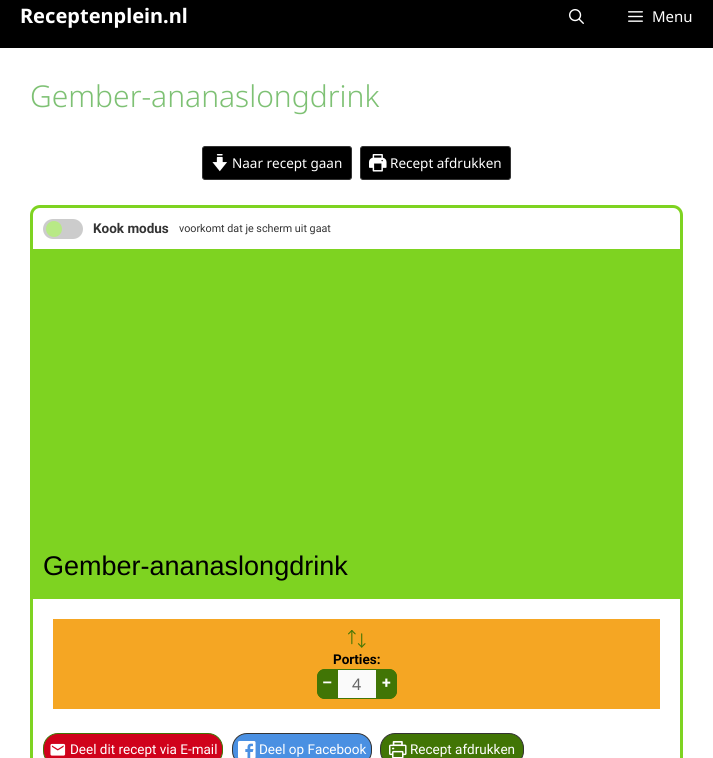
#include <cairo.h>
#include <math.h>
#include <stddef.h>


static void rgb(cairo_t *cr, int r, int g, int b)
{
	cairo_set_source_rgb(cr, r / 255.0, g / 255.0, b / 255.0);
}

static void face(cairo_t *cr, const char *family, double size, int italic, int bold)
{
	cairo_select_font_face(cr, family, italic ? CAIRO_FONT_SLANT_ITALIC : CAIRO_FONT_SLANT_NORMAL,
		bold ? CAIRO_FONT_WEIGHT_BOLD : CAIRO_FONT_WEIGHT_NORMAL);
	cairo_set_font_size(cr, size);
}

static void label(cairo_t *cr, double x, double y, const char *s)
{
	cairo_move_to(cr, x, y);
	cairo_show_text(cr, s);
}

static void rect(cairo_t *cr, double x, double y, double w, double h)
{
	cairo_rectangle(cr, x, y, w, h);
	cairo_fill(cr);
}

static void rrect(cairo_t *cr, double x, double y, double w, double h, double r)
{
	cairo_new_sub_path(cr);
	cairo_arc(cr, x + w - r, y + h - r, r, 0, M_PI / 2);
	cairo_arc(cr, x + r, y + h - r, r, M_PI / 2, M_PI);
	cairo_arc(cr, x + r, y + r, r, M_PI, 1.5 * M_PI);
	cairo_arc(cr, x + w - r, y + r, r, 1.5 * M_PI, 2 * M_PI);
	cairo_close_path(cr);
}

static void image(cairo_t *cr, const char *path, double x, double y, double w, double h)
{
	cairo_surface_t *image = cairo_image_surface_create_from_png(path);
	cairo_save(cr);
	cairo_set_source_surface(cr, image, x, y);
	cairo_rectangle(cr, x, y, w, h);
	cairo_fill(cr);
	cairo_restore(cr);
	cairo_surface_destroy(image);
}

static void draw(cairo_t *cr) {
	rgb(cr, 0, 0, 0);
	cairo_paint(cr);
	face(cr, "Noto Sans", 20, 0, 1);
	rgb(cr, 255, 255, 255);
	label(cr, 20, 23, "Receptenplein.nl");
	image(cr, "image0.png", 569, 9, 15, 15);
	image(cr, "image1.png", 628, 11, 15, 11);
	face(cr, "Noto Sans", 15, 0, 0);
	label(cr, 652, 22, "Menu");
	rect(cr, 0, 48, 713, 710);
	face(cr, "Noto Sans Light", 30, 0, 0);
	rgb(cr, 126, 193, 116);
	label(cr, 30, 107, "Gember-ananaslongdrink");
	rgb(cr, 0, 0, 0);
	rrect(cr, 202.5, 146.5, 149, 33, 2.5);
	cairo_fill_preserve(cr);
	rgb(cr, 51, 51, 51);
	cairo_set_line_width(cr, 1);
	cairo_stroke(cr);
	image(cr, "image2.png", 212, 154, 15, 18);
	face(cr, "Noto Sans", 13.5, 0, 0);
	rgb(cr, 255, 255, 255);
	label(cr, 232, 168, "Naar recept gaan");
	rgb(cr, 0, 0, 0);
	rrect(cr, 360.5, 146.5, 150, 33, 2.5);
	cairo_fill_preserve(cr);
	rgb(cr, 51, 51, 51);
	cairo_stroke(cr);
	image(cr, "image3.png", 369, 154, 18, 18);
	rgb(cr, 255, 255, 255);
	label(cr, 390, 168, "Recept afdrukken");
	rrect(cr, 31.5, 206.5, 650, 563, 8.5);
	rgb(cr, 126, 211, 33);
	cairo_set_line_width(cr, 3);
	cairo_stroke(cr);
	rgb(cr, 204, 204, 204);
	rrect(cr, 43, 219, 40, 20, 10);
	cairo_fill(cr);
	rgb(cr, 184, 233, 134);
	cairo_arc(cr, 54, 229, 8, 0, 2 * M_PI);
	cairo_fill(cr);
	face(cr, "Roboto", 13.5, 0, 1);
	rgb(cr, 51, 51, 51);
	label(cr, 93, 233, "Kook modus");
	face(cr, "Roboto", 10.75, 0, 0);
	label(cr, 179, 232, "voorkomt dat je scherm uit gaat");
	rgb(cr, 126, 211, 33);
	rect(cr, 33, 249, 647, 350);
	face(cr, "Liberation Sans", 27, 0, 0);
	rgb(cr, 0, 0, 0);
	label(cr, 43, 575, "Gember-ananaslongdrink");
	rgb(cr, 245, 166, 35);
	rect(cr, 53, 619, 607, 90);
	image(cr, "image4.png", 348, 630, 18, 18);
	face(cr, "Roboto", 13.5, 0, 1);
	rgb(cr, 0, 0, 0);
	label(cr, 333, 664, "Porties:");
	rgb(cr, 65, 117, 5);
	cairo_new_path(cr);
	cairo_move_to(cr, 325, 669);
	cairo_line_to(cr, 337, 669);
	cairo_line_to(cr, 337, 699);
	cairo_line_to(cr, 325, 699);
	cairo_curve_to(cr, 320.5, 699, 317, 695.5, 317, 691);
	cairo_line_to(cr, 317, 677);
	cairo_curve_to(cr, 317, 672.5, 320.5, 669, 325, 669);
	cairo_close_path(cr);
	cairo_fill(cr);
	cairo_set_fill_rule(cr, CAIRO_FILL_RULE_EVEN_ODD);
	cairo_new_path(cr);
	cairo_move_to(cr, 325, 669);
	cairo_line_to(cr, 337, 669);
	cairo_line_to(cr, 337, 699);
	cairo_line_to(cr, 325, 699);
	cairo_curve_to(cr, 320.5, 699, 317, 695.5, 317, 691);
	cairo_line_to(cr, 317, 677);
	cairo_curve_to(cr, 317, 672.5, 320.5, 669, 325, 669);
	cairo_close_path(cr);
	cairo_move_to(cr, 325, 670);
	cairo_line_to(cr, 337, 670);
	cairo_line_to(cr, 337, 698);
	cairo_line_to(cr, 325, 698);
	cairo_curve_to(cr, 321, 698, 318, 695, 318, 691);
	cairo_line_to(cr, 318, 677);
	cairo_curve_to(cr, 318, 673, 321, 670, 325, 670);
	cairo_close_path(cr);
	cairo_fill(cr);
	face(cr, "Roboto", 16, 0, 1);
	rgb(cr, 255, 255, 255);
	label(cr, 322, 688, "–");
	rgb(cr, 250, 250, 250);
	cairo_rectangle(cr, 337.5, 669.5, 39, 29);
	cairo_fill_preserve(cr);
	rgb(cr, 65, 117, 5);
	cairo_set_line_width(cr, 1);
	cairo_stroke(cr);
	face(cr, "Noto Sans", 16, 0, 0);
	rgb(cr, 102, 102, 102);
	label(cr, 352, 690, "4");
	rgb(cr, 65, 117, 5);
	cairo_new_path(cr);
	cairo_move_to(cr, 377, 669);
	cairo_line_to(cr, 389, 669);
	cairo_curve_to(cr, 393.5, 669, 397, 672.5, 397, 677);
	cairo_line_to(cr, 397, 691);
	cairo_curve_to(cr, 397, 695.5, 393.5, 699, 389, 699);
	cairo_line_to(cr, 377, 699);
	cairo_close_path(cr);
	cairo_fill(cr);
	cairo_new_path(cr);
	cairo_move_to(cr, 377, 669);
	cairo_line_to(cr, 389, 669);
	cairo_curve_to(cr, 393.5, 669, 397, 672.5, 397, 677);
	cairo_line_to(cr, 397, 691);
	cairo_curve_to(cr, 397, 695.5, 393.5, 699, 389, 699);
	cairo_line_to(cr, 377, 699);
	cairo_close_path(cr);
	cairo_move_to(cr, 377, 670);
	cairo_line_to(cr, 389, 670);
	cairo_curve_to(cr, 393, 670, 396, 673, 396, 677);
	cairo_line_to(cr, 396, 691);
	cairo_curve_to(cr, 396, 695, 393, 698, 389, 698);
	cairo_line_to(cr, 377, 698);
	cairo_close_path(cr);
	cairo_fill(cr);
	face(cr, "Roboto", 16, 0, 1);
	rgb(cr, 255, 255, 255);
	label(cr, 382, 688, "+");
	rgb(cr, 208, 2, 27);
	rrect(cr, 43.5, 733.5, 179, 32, 14.5);
	cairo_fill_preserve(cr);
	rgb(cr, 65, 117, 5);
	cairo_stroke(cr);
	image(cr, "image5.png", 50, 743, 16, 13);
	face(cr, "Roboto", 13.5, 0, 0);
	rgb(cr, 255, 255, 255);
	label(cr, 70, 754, "Deel dit recept via E-mail");
	rgb(cr, 74, 144, 226);
	rrect(cr, 232.5, 733.5, 139, 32, 14.5);
	cairo_fill_preserve(cr);
	rgb(cr, 51, 51, 51);
	cairo_stroke(cr);
	image(cr, "image6.png", 238, 741, 18, 17);
	rgb(cr, 255, 255, 255);
	label(cr, 259, 754, "Deel op Facebook");
	rgb(cr, 65, 117, 5);
	rrect(cr, 380.5, 733.5, 143, 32, 14.5);
	cairo_fill_preserve(cr);
	rgb(cr, 51, 51, 51);
	cairo_stroke(cr);
	image(cr, "image7.png", 389, 741, 18, 17);
	rgb(cr, 255, 255, 255);
	label(cr, 410, 754, "Recept afdrukken");
}

int main(void) {
	cairo_surface_t *surface = cairo_image_surface_create(CAIRO_FORMAT_RGB24, 713, 758);
	cairo_t *cr = cairo_create(surface);
	cairo_font_options_t *options = cairo_font_options_create();
	cairo_font_options_set_hint_metrics(options, CAIRO_HINT_METRICS_OFF);
	cairo_font_options_set_hint_style(options, CAIRO_HINT_STYLE_NONE);
	cairo_set_font_options(cr, options);
	cairo_set_miter_limit(cr, 4);
	draw(cr);
	cairo_surface_write_to_png(surface, "render.png");
	cairo_font_options_destroy(options);
	cairo_destroy(cr);
	cairo_surface_destroy(surface);
	return 0;
}
